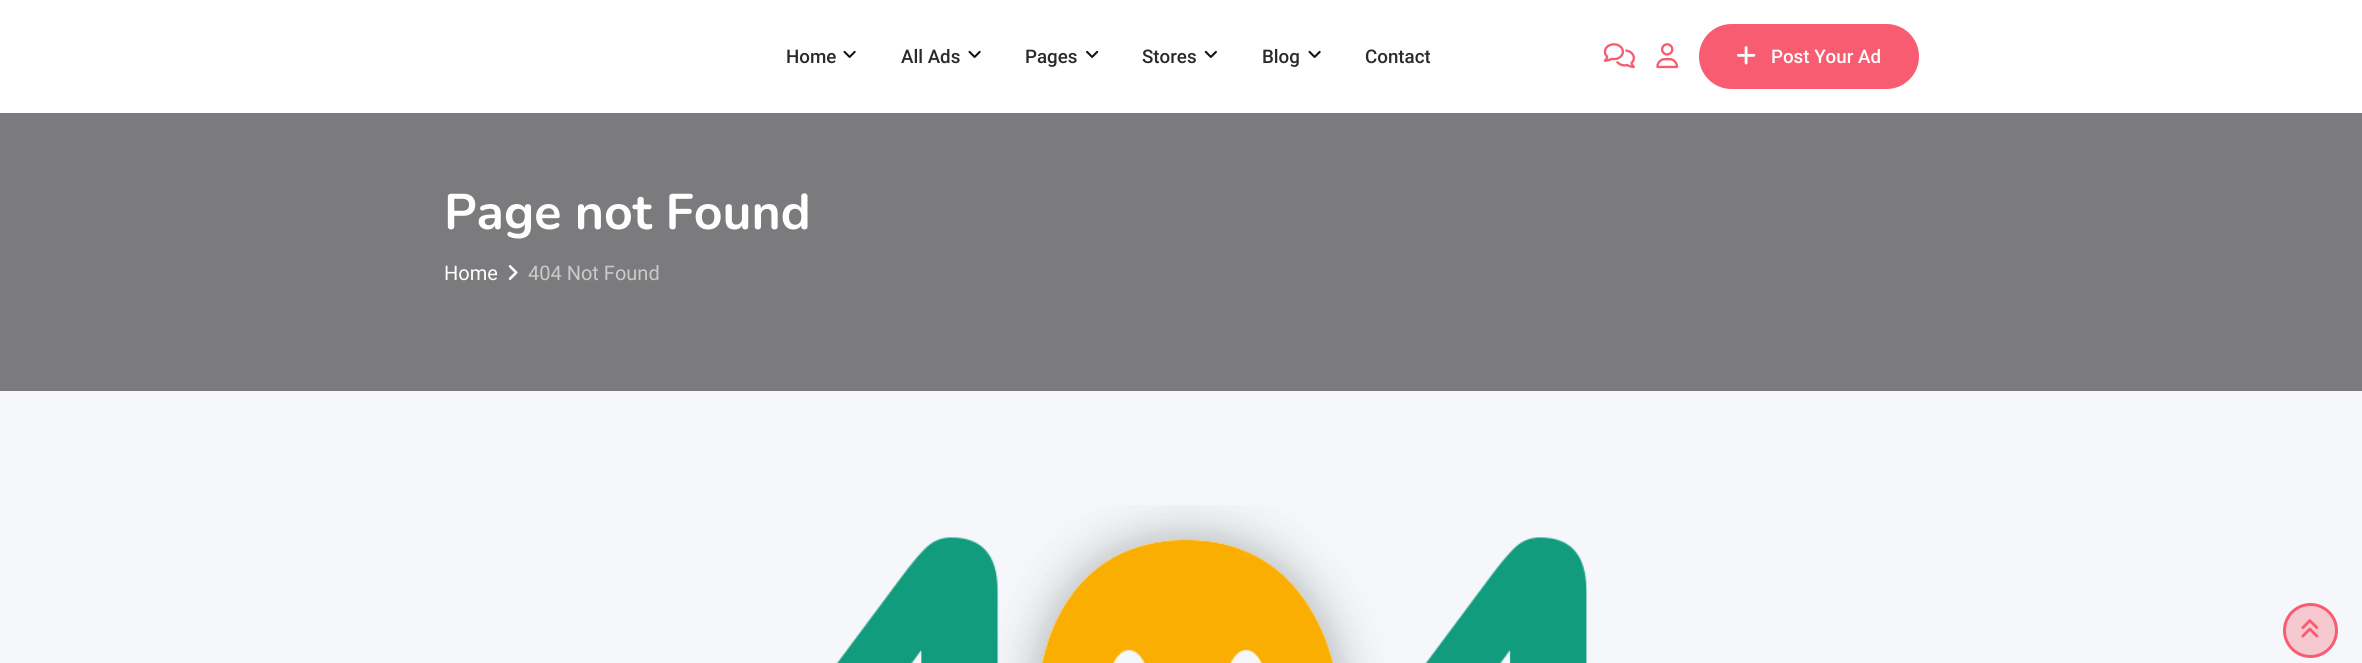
#include <cairo.h>
#include <math.h>
#include <stddef.h>


static void rgb(cairo_t *cr, int r, int g, int b)
{
	cairo_set_source_rgb(cr, r / 255.0, g / 255.0, b / 255.0);
}

static void face(cairo_t *cr, const char *family, double size, int italic, int bold)
{
	cairo_select_font_face(cr, family, italic ? CAIRO_FONT_SLANT_ITALIC : CAIRO_FONT_SLANT_NORMAL,
		bold ? CAIRO_FONT_WEIGHT_BOLD : CAIRO_FONT_WEIGHT_NORMAL);
	cairo_set_font_size(cr, size);
}

static void label(cairo_t *cr, double x, double y, const char *s)
{
	cairo_move_to(cr, x, y);
	cairo_show_text(cr, s);
}

static void rect(cairo_t *cr, double x, double y, double w, double h)
{
	cairo_rectangle(cr, x, y, w, h);
	cairo_fill(cr);
}

static void rrect(cairo_t *cr, double x, double y, double w, double h, double r)
{
	cairo_new_sub_path(cr);
	cairo_arc(cr, x + w - r, y + h - r, r, 0, M_PI / 2);
	cairo_arc(cr, x + r, y + h - r, r, M_PI / 2, M_PI);
	cairo_arc(cr, x + r, y + r, r, M_PI, 1.5 * M_PI);
	cairo_arc(cr, x + w - r, y + r, r, 1.5 * M_PI, 2 * M_PI);
	cairo_close_path(cr);
}

static void image(cairo_t *cr, const char *path, double x, double y, double w, double h)
{
	cairo_surface_t *image = cairo_image_surface_create_from_png(path);
	cairo_save(cr);
	cairo_set_source_surface(cr, image, x, y);
	cairo_rectangle(cr, x, y, w, h);
	cairo_fill(cr);
	cairo_restore(cr);
	cairo_surface_destroy(image);
}

static void draw(cairo_t *cr) {
	rgb(cr, 255, 255, 255);
	cairo_paint(cr);
	face(cr, "Roboto Medium", 18.75, 0, 0);
	rgb(cr, 42, 42, 42);
	label(cr, 786, 63, "Home");
	image(cr, "image0.png", 843, 50, 13, 8);
	label(cr, 901, 63, "All Ads");
	image(cr, "image0.png", 968, 50, 13, 8);
	label(cr, 1025, 63, "Pages");
	image(cr, "image1.png", 1086, 50, 13, 8);
	label(cr, 1142, 63, "Stores");
	image(cr, "image2.png", 1204, 50, 13, 8);
	label(cr, 1262, 63, "Blog");
	image(cr, "image0.png", 1308, 50, 13, 8);
	label(cr, 1365, 63, "Contact");
	image(cr, "image3.png", 1603, 43, 32, 26);
	image(cr, "image4.png", 1656, 43, 23, 26);
	rgb(cr, 248, 92, 112);
	rrect(cr, 1699, 24, 220, 65, 32.5);
	cairo_fill(cr);
	image(cr, "image5.png", 1737, 46, 19, 19);
	rgb(cr, 255, 255, 255);
	label(cr, 1771, 63, "Post Your Ad");
	rgb(cr, 245, 247, 250);
	rect(cr, 0, 391, 2362, 272);
	rgb(cr, 123, 123, 125);
	rect(cr, 0, 113, 2362, 278);
	face(cr, "Nunito ExtraLight", 50, 0, 0);
	rgb(cr, 255, 255, 255);
	label(cr, 444, 229, "Page not Found");
	face(cr, "Roboto", 20, 0, 0);
	label(cr, 444, 280, "Home");
	image(cr, "image6.png", 508, 265, 10, 15);
	rgb(cr, 202, 202, 202);
	label(cr, 528, 280, "404 Not Found");
	image(cr, "image7.png", 836, 505, 752, 158);
	rgb(cr, 246, 201, 209);
	cairo_arc(cr, 2310.5, 630.5, 26, 0, 2 * M_PI);
	cairo_fill_preserve(cr);
	rgb(cr, 248, 92, 112);
	cairo_set_line_width(cr, 3);
	cairo_stroke(cr);
	image(cr, "image8.png", 2301, 619, 18, 19);
}

int main(void) {
	cairo_surface_t *surface = cairo_image_surface_create(CAIRO_FORMAT_RGB24, 2362, 663);
	cairo_t *cr = cairo_create(surface);
	cairo_font_options_t *options = cairo_font_options_create();
	cairo_font_options_set_hint_metrics(options, CAIRO_HINT_METRICS_OFF);
	cairo_font_options_set_hint_style(options, CAIRO_HINT_STYLE_NONE);
	cairo_set_font_options(cr, options);
	cairo_set_miter_limit(cr, 4);
	draw(cr);
	cairo_surface_write_to_png(surface, "render.png");
	cairo_font_options_destroy(options);
	cairo_destroy(cr);
	cairo_surface_destroy(surface);
	return 0;
}
